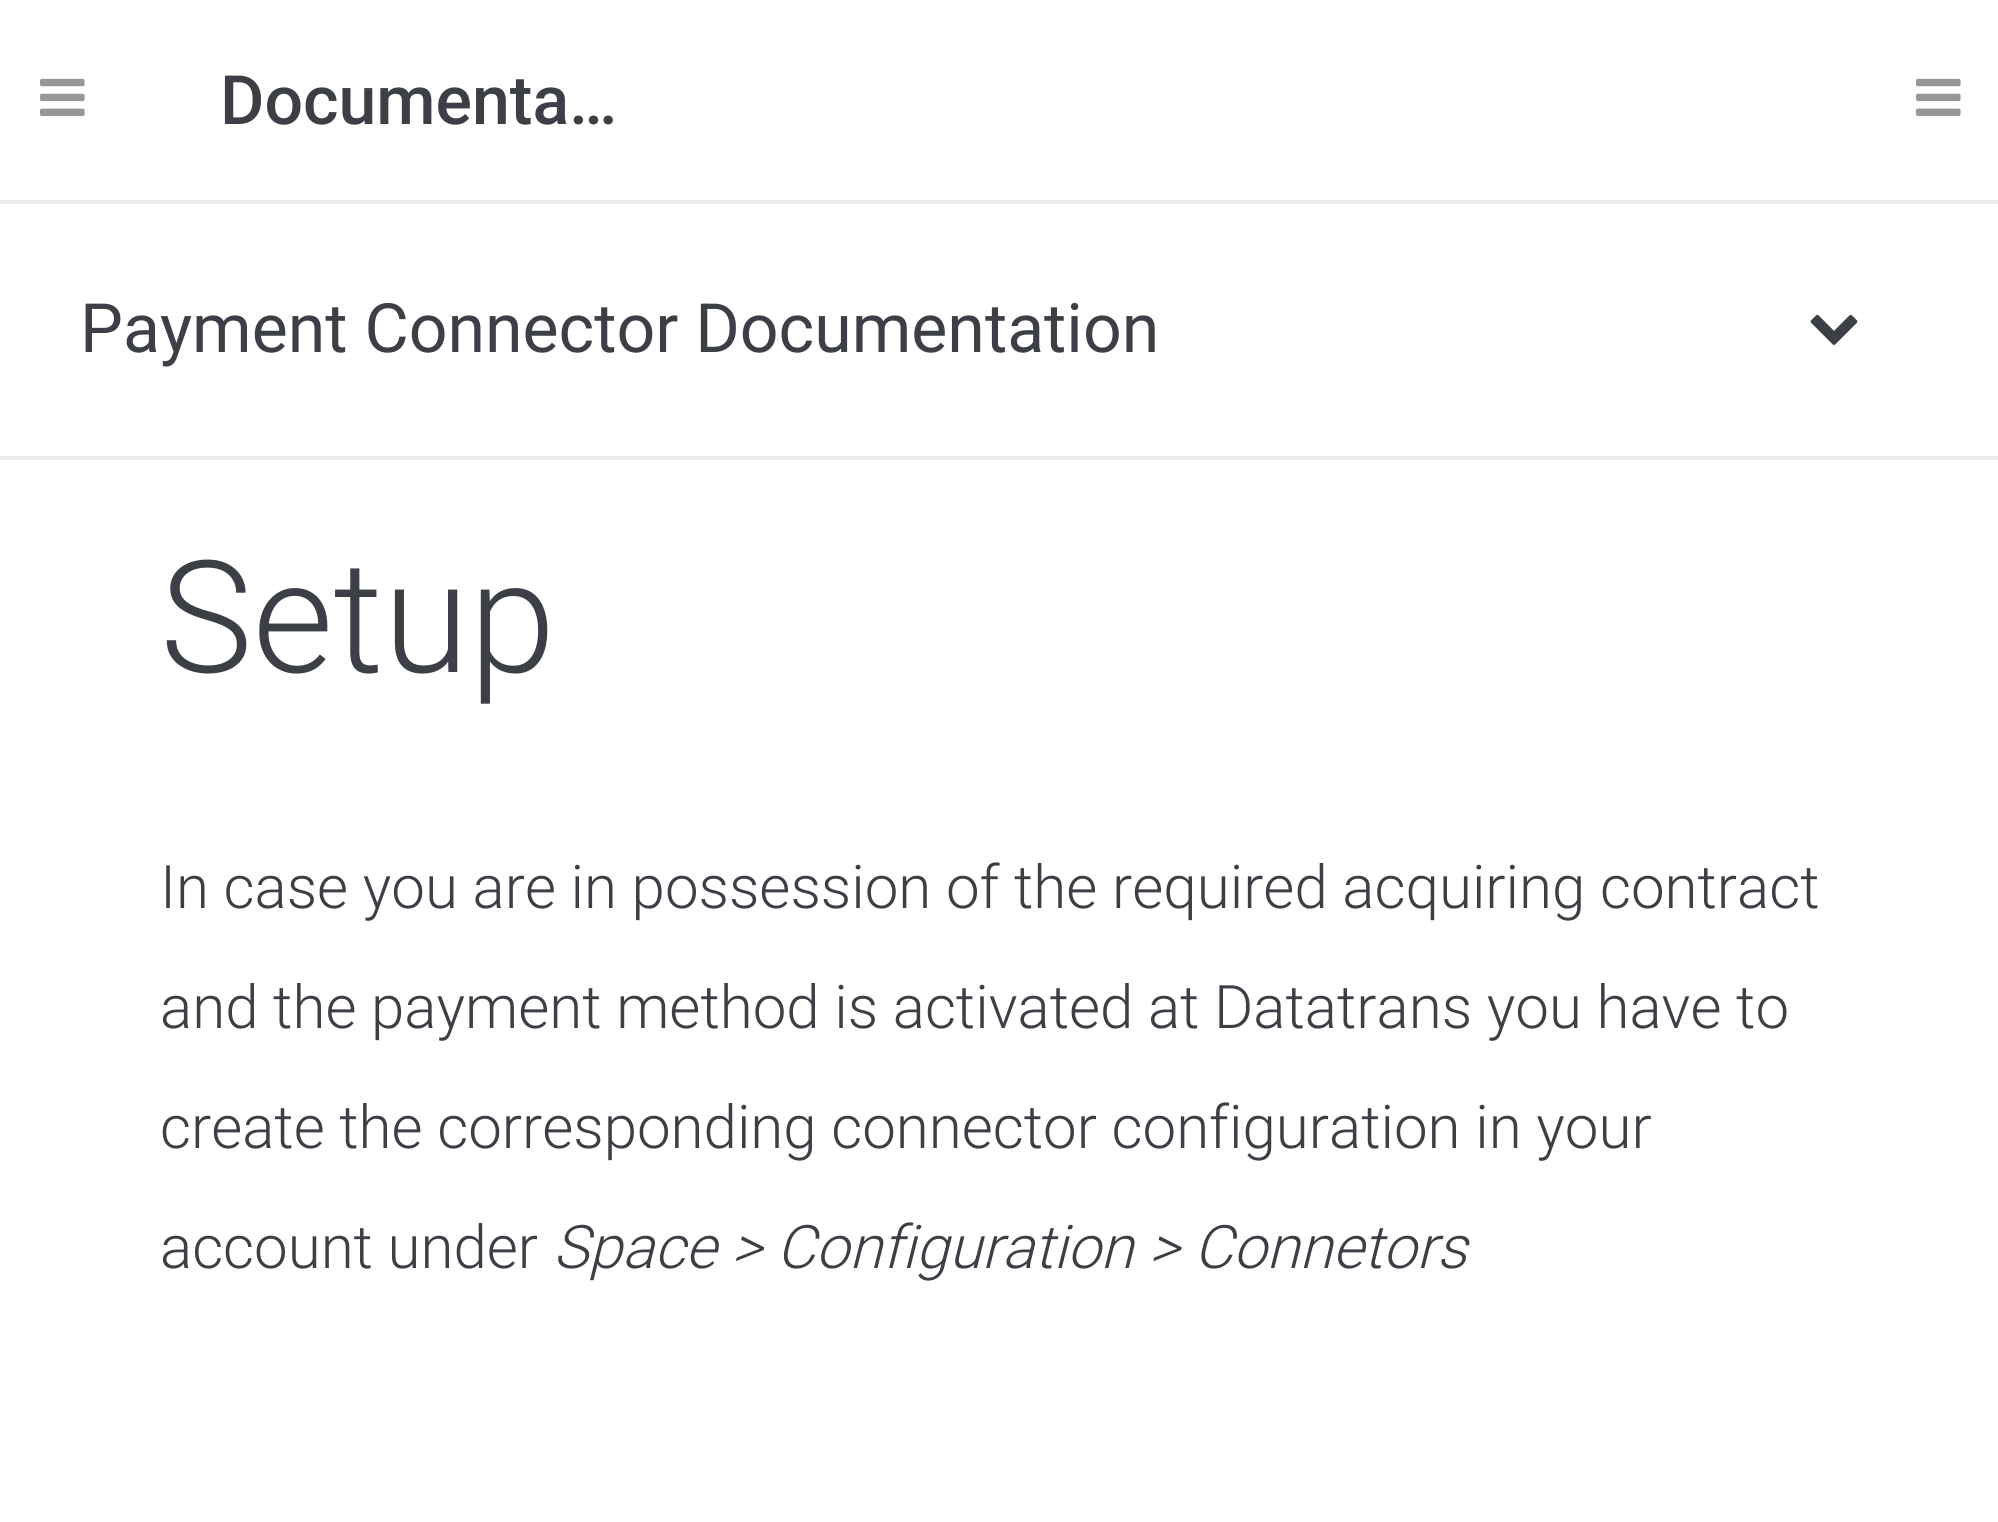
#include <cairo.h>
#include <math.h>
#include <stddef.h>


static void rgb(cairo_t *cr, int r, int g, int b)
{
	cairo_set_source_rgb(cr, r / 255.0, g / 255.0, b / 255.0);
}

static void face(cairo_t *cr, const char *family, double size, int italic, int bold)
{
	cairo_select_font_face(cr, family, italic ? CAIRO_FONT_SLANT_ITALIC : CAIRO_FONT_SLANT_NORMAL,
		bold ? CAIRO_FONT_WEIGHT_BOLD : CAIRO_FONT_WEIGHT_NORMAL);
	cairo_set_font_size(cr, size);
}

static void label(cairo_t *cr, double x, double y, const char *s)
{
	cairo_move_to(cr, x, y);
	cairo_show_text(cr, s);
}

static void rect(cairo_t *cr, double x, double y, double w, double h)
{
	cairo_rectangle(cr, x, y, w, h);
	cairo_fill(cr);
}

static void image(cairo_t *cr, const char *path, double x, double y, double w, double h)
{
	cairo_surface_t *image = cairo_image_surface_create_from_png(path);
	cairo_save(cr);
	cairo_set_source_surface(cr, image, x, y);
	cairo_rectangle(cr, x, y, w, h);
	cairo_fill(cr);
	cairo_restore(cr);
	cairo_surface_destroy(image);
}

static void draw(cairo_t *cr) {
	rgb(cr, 255, 255, 255);
	cairo_paint(cr);
	rgb(cr, 234, 234, 234);
	rect(cr, 0, 200, 1998, 4);
	image(cr, "image0.png", 40, 78, 45, 38);
	face(cr, "Roboto Medium", 68, 0, 0);
	rgb(cr, 61, 63, 70);
	label(cr, 220, 124, "Documenta…");
	image(cr, "image0.png", 1916, 78, 45, 38);
	rgb(cr, 234, 234, 234);
	rect(cr, 0, 456, 1998, 4);
	face(cr, "Roboto", 68, 0, 0);
	rgb(cr, 61, 63, 70);
	label(cr, 80, 352, "Payment Connector Documentation");
	image(cr, "image1.png", 1810, 314, 48, 31);
	face(cr, "Roboto Light", 156, 0, 0);
	label(cr, 160, 672, "Setup");
	face(cr, "Roboto Light", 60, 0, 0);
	label(cr, 160, 908, "In case you are in possession of the required acquiring contract");
	label(cr, 160, 1028, "and the payment method is activated at Datatrans you have to");
	label(cr, 160, 1148, "create the corresponding connector configuration in your");
	label(cr, 160, 1268, "account under");
	face(cr, "Roboto Light", 60, 1, 0);
	label(cr, 553, 1268, "Space > Configuration > Connetors");
}

int main(void) {
	cairo_surface_t *surface = cairo_image_surface_create(CAIRO_FORMAT_RGB24, 1998, 1522);
	cairo_t *cr = cairo_create(surface);
	cairo_font_options_t *options = cairo_font_options_create();
	cairo_font_options_set_hint_metrics(options, CAIRO_HINT_METRICS_OFF);
	cairo_font_options_set_hint_style(options, CAIRO_HINT_STYLE_NONE);
	cairo_set_font_options(cr, options);
	cairo_set_miter_limit(cr, 4);
	draw(cr);
	cairo_surface_write_to_png(surface, "render.png");
	cairo_font_options_destroy(options);
	cairo_destroy(cr);
	cairo_surface_destroy(surface);
	return 0;
}
